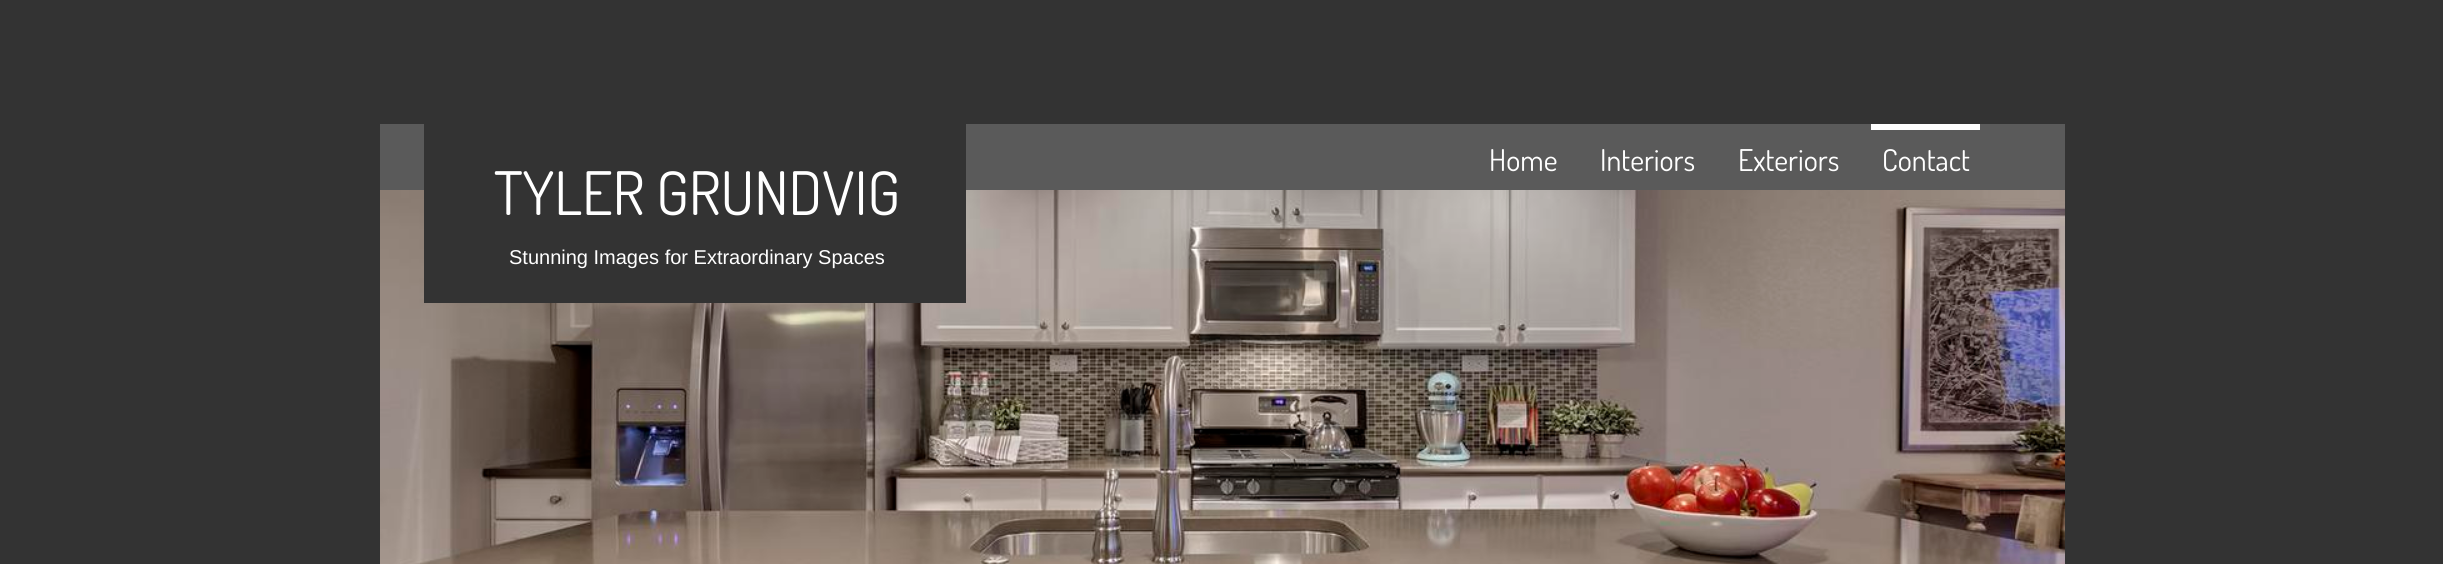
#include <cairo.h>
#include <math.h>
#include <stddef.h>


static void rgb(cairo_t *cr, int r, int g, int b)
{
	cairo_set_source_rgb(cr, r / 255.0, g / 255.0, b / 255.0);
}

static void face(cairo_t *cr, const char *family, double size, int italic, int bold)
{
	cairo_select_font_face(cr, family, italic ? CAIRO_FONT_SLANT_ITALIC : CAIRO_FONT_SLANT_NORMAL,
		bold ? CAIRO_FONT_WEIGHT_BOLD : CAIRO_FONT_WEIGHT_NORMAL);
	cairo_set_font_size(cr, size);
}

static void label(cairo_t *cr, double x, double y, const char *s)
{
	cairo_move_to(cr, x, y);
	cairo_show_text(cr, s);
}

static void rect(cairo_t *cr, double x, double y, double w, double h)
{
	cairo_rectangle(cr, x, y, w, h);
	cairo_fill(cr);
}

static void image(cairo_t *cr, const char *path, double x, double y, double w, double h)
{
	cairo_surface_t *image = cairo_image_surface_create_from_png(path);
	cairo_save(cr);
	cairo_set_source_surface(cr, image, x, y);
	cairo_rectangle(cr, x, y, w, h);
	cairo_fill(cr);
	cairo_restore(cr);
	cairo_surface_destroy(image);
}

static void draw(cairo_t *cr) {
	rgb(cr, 51, 51, 51);
	cairo_paint(cr);
	rgb(cr, 90, 90, 90);
	rect(cr, 380, 124, 1685, 66);
	image(cr, "image0.png", 380, 190, 1685, 374);
	rgb(cr, 51, 51, 51);
	rect(cr, 424, 124, 542, 179);
	face(cr, "Dosis", 30, 0, 0);
	rgb(cr, 255, 255, 255);
	label(cr, 1489, 171, "Home");
	label(cr, 1600, 171, "Interiors");
	label(cr, 1738, 171, "Exteriors");
	rect(cr, 1871, 124, 109, 6);
	label(cr, 1882, 171, "Contact");
	face(cr, "Dosis", 60, 0, 0);
	label(cr, 494, 215, "TYLER GRUNDVIG");
	face(cr, "Liberation Sans", 20, 0, 0);
	label(cr, 509, 264, "Stunning Images for Extraordinary Spaces");
}

int main(void) {
	cairo_surface_t *surface = cairo_image_surface_create(CAIRO_FORMAT_RGB24, 2443, 564);
	cairo_t *cr = cairo_create(surface);
	cairo_font_options_t *options = cairo_font_options_create();
	cairo_font_options_set_hint_metrics(options, CAIRO_HINT_METRICS_OFF);
	cairo_font_options_set_hint_style(options, CAIRO_HINT_STYLE_NONE);
	cairo_set_font_options(cr, options);
	cairo_set_miter_limit(cr, 4);
	draw(cr);
	cairo_surface_write_to_png(surface, "render.png");
	cairo_font_options_destroy(options);
	cairo_destroy(cr);
	cairo_surface_destroy(surface);
	return 0;
}
